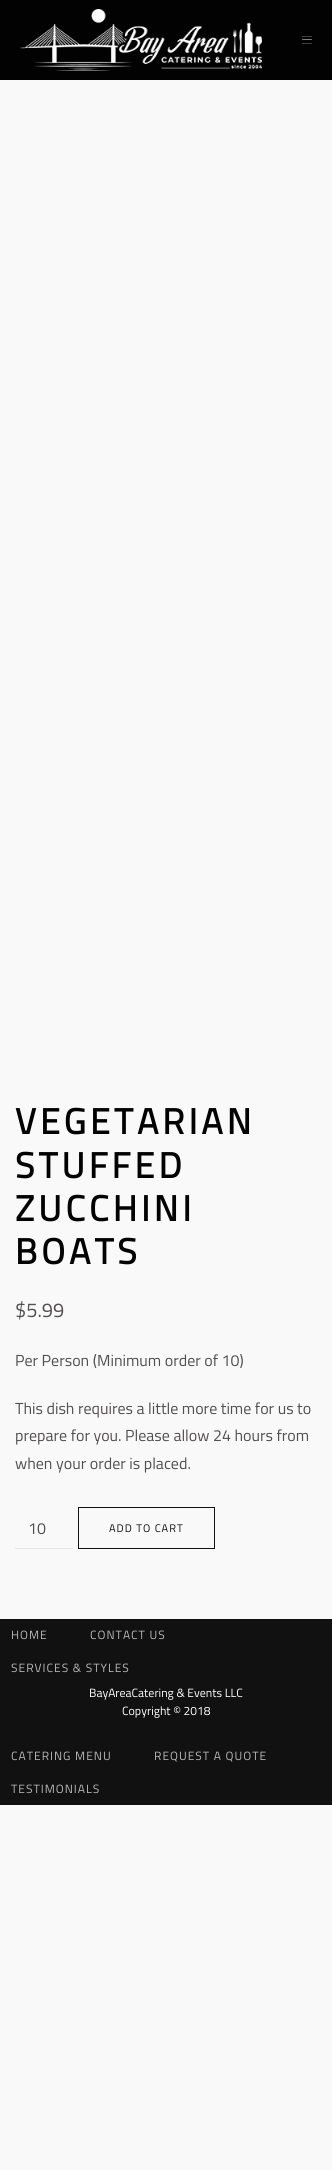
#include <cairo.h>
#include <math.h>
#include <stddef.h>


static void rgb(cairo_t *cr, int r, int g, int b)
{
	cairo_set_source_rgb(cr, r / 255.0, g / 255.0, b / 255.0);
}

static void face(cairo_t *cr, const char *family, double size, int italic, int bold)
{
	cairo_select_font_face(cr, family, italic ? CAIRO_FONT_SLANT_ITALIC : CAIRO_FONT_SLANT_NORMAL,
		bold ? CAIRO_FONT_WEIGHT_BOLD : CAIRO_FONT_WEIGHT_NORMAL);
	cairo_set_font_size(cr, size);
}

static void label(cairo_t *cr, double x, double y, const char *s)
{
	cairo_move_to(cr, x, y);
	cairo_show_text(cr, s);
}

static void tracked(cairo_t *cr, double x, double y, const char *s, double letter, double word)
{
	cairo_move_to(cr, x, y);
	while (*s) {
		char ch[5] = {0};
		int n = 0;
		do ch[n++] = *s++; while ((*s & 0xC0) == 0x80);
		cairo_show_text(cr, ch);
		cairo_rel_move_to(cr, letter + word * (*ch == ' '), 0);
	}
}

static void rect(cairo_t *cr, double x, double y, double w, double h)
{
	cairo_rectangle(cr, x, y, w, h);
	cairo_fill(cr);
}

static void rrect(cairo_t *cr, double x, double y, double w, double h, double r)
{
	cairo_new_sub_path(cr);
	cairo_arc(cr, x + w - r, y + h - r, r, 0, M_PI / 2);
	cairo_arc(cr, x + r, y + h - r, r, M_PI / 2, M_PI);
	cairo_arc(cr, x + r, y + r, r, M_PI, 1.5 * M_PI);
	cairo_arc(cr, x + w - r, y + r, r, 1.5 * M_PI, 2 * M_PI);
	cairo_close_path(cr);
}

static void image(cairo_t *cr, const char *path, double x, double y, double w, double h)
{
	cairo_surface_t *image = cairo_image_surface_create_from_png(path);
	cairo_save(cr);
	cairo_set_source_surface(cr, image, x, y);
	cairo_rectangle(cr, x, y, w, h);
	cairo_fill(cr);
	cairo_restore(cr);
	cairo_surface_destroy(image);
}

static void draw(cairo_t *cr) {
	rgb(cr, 249, 249, 249);
	cairo_paint(cr);
	rgb(cr, 2, 2, 2);
	rect(cr, 0, 0, 332, 80);
	image(cr, "image0.png", 20, 9, 242, 62);
	rgb(cr, 64, 64, 64);
	rect(cr, 302, 36, 10, 1);
	rgb(cr, 129, 129, 129);
	rrect(cr, 302, 39, 10, 1, 0.5);
	cairo_fill(cr);
	rgb(cr, 64, 64, 64);
	rect(cr, 302, 43, 10, 1);
	face(cr, "Cairo", 36, 0, 1);
	rgb(cr, 1, 1, 1);
	tracked(cr, 15, 1134, "VEGETARIAN", 4, 0);
	tracked(cr, 15, 1178, "STUFFED", 4, 0);
	tracked(cr, 15, 1221, "ZUCCHINI", 4, 0);
	tracked(cr, 15, 1264, "BOATS", 4, 0);
	face(cr, "Cairo", 20, 0, 0);
	rgb(cr, 82, 79, 79);
	label(cr, 15, 1317, "$5.99");
	face(cr, "Cairo", 16, 0, 0);
	label(cr, 15, 1366, "Per Person (Minimum order of 10)");
	label(cr, 15, 1414, "This dish requires a little more time for us to");
	label(cr, 15, 1441, "prepare for you. Please allow 24 hours from");
	label(cr, 15, 1469, "when your order is placed.");
	rgb(cr, 229, 229, 229);
	rect(cr, 15, 1548, 58, 1);
	rgb(cr, 82, 79, 79);
	label(cr, 28, 1534, "10");
	cairo_rectangle(cr, 78.5, 1507.5, 136, 41);
	rgb(cr, 17, 17, 17);
	cairo_set_line_width(cr, 1);
	cairo_stroke(cr);
	face(cr, "Cairo", 11, 0, 0);
	tracked(cr, 109, 1532, "ADD TO CART", 1, 0);
	rect(cr, 0, 1619, 332, 186);
	face(cr, "Cairo", 12, 0, 0);
	rgb(cr, 184, 184, 184);
	tracked(cr, 11, 1639, "HOME", 1, 0);
	tracked(cr, 90, 1639, "CONTACT US", 1, 0);
	tracked(cr, 11, 1672, "SERVICES & STYLES", 1, 0);
	rgb(cr, 255, 255, 255);
	label(cr, 89, 1697, "BayAreaCatering & Events LLC");
	label(cr, 122, 1715, "Copyright © 2018");
	rgb(cr, 184, 184, 184);
	tracked(cr, 11, 1760, "CATERING MENU", 1, 0);
	tracked(cr, 154, 1760, "REQUEST A QUOTE", 1, 0);
	tracked(cr, 11, 1793, "TESTIMONIALS", 1, 0);
}

int main(void) {
	cairo_surface_t *surface = cairo_image_surface_create(CAIRO_FORMAT_RGB24, 332, 2170);
	cairo_t *cr = cairo_create(surface);
	cairo_font_options_t *options = cairo_font_options_create();
	cairo_font_options_set_hint_metrics(options, CAIRO_HINT_METRICS_OFF);
	cairo_font_options_set_hint_style(options, CAIRO_HINT_STYLE_NONE);
	cairo_set_font_options(cr, options);
	cairo_set_miter_limit(cr, 4);
	draw(cr);
	cairo_surface_write_to_png(surface, "render.png");
	cairo_font_options_destroy(options);
	cairo_destroy(cr);
	cairo_surface_destroy(surface);
	return 0;
}
